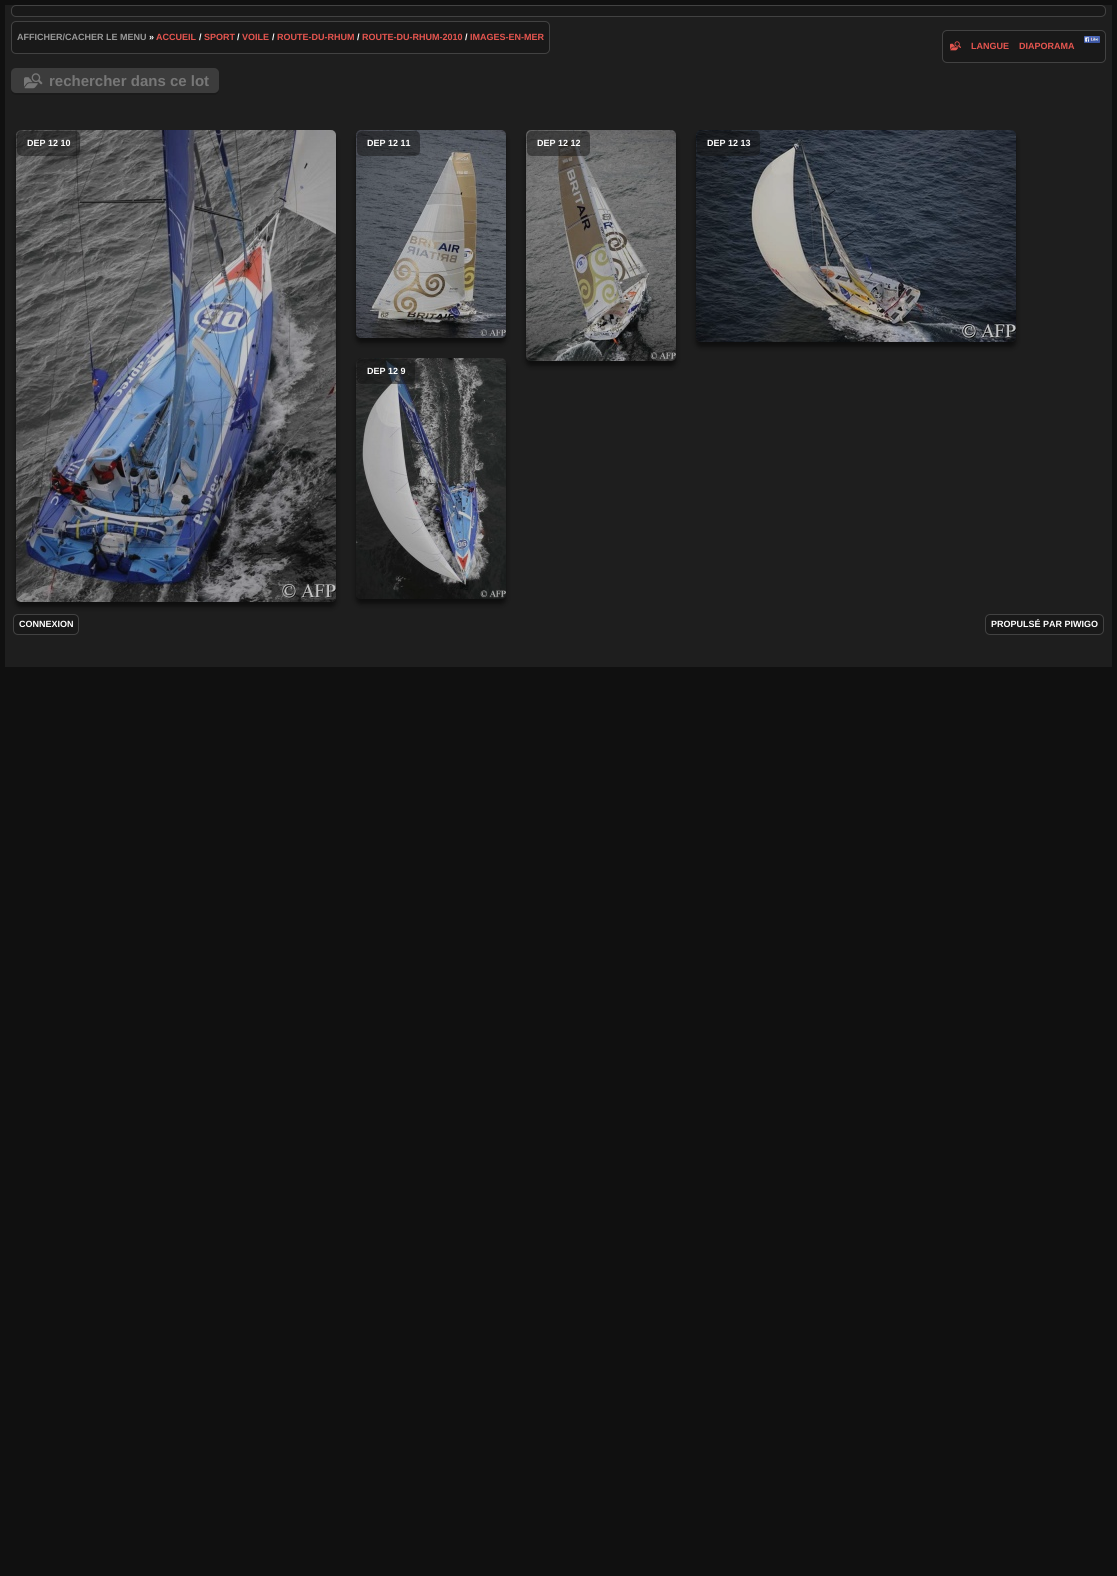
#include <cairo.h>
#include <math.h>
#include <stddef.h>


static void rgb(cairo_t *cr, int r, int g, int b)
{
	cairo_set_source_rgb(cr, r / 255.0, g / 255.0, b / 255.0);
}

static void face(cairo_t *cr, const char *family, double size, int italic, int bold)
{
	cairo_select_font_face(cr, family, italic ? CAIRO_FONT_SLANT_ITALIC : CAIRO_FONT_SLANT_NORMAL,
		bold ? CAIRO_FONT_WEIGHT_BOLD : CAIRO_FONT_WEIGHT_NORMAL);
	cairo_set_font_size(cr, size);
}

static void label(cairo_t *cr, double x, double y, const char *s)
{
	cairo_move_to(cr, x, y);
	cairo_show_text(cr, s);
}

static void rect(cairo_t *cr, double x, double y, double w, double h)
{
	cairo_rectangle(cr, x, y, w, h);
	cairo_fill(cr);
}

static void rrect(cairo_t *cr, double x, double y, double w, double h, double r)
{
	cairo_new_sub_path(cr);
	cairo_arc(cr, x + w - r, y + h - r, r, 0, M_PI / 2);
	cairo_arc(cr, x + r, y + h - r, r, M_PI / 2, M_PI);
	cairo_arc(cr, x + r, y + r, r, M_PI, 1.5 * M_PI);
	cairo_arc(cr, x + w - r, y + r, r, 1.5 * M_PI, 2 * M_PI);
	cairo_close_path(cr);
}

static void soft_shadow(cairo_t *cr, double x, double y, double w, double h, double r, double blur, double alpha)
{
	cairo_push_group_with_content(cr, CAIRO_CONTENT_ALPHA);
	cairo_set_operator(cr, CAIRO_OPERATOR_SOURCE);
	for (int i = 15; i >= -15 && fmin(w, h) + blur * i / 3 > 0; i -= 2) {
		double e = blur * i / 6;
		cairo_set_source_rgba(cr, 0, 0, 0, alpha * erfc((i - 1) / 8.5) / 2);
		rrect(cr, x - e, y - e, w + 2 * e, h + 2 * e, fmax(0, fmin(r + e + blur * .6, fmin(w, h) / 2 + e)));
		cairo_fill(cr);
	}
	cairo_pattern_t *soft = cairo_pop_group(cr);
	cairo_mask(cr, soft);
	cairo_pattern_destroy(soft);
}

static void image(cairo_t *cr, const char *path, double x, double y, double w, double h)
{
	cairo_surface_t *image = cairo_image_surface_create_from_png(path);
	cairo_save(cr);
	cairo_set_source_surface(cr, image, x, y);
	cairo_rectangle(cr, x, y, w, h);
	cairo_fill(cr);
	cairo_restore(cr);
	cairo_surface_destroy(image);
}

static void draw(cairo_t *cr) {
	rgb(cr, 16, 16, 16);
	cairo_paint(cr);
	rgb(cr, 30, 30, 30);
	rect(cr, 5, 5, 1107, 662);
	image(cr, "image0.png", 11, 5, 1095, 12);
	rrect(cr, 11.5, 5.5, 1094, 11, 4.5);
	rgb(cr, 66, 66, 66);
	cairo_set_line_width(cr, 1);
	cairo_stroke(cr);
	image(cr, "image1.png", 11, 21, 539, 33);
	rrect(cr, 11.5, 21.5, 538, 32, 4.5);
	cairo_stroke(cr);
	face(cr, "Liberation Sans", 9, 0, 1);
	rgb(cr, 153, 153, 153);
	label(cr, 17, 40, "AFFICHER/CACHER LE MENU");
	rgb(cr, 255, 255, 255);
	label(cr, 149, 40, "»");
	rgb(cr, 230, 85, 79);
	label(cr, 156, 40, "ACCUEIL");
	rgb(cr, 255, 255, 255);
	label(cr, 199, 40, "/");
	rgb(cr, 230, 85, 79);
	label(cr, 204, 40, "SPORT");
	rgb(cr, 255, 255, 255);
	label(cr, 237, 40, "/");
	rgb(cr, 230, 85, 79);
	label(cr, 242, 40, "VOILE");
	rgb(cr, 255, 255, 255);
	label(cr, 272, 40, "/");
	rgb(cr, 230, 85, 79);
	label(cr, 277, 40, "ROUTE-DU-RHUM");
	rgb(cr, 255, 255, 255);
	label(cr, 357, 40, "/");
	rgb(cr, 230, 85, 79);
	label(cr, 362, 40, "ROUTE-DU-RHUM-2010");
	rgb(cr, 255, 255, 255);
	label(cr, 465, 40, "/");
	rgb(cr, 230, 85, 79);
	label(cr, 470, 40, "IMAGES-EN-MER");
	image(cr, "image2.png", 942, 30, 164, 33);
	rrect(cr, 942.5, 30.5, 163, 32, 4.5);
	rgb(cr, 66, 66, 66);
	cairo_stroke(cr);
	image(cr, "image3.png", 1084, 36, 16, 7);
	image(cr, "image4.png", 950, 41, 11, 10);
	rgb(cr, 230, 85, 79);
	label(cr, 971, 49, "LANGUE");
	label(cr, 1019, 49, "DIAPORAMA");
	rgb(cr, 26, 26, 26);
	cairo_new_path(cr);
	cairo_move_to(cr, 11, 88);
	cairo_line_to(cr, 11, 90);
	cairo_curve_to(cr, 11, 93, 13, 95, 16, 95);
	cairo_line_to(cr, 214, 95);
	cairo_curve_to(cr, 217, 95, 219, 93, 219, 90);
	cairo_line_to(cr, 219, 88);
	cairo_curve_to(cr, 219, 91, 217, 93, 214, 93);
	cairo_line_to(cr, 16, 93);
	cairo_curve_to(cr, 13, 93, 11, 91, 11, 88);
	cairo_close_path(cr);
	cairo_fill(cr);
	rgb(cr, 60, 60, 60);
	rrect(cr, 11, 68, 208, 25, 5);
	cairo_fill(cr);
	image(cr, "image5.png", 24, 73, 19, 16);
	face(cr, "Liberation Sans", 15, 0, 1);
	rgb(cr, 119, 119, 119);
	label(cr, 49, 86, "rechercher dans ce lot");
	image(cr, "image16.png", 13, 614, 66, 21);
	rrect(cr, 13.5, 614.5, 65, 20, 4.5);
	rgb(cr, 66, 66, 66);
	cairo_stroke(cr);
	cairo_save(cr);
	cairo_set_fill_rule(cr, CAIRO_FILL_RULE_EVEN_ODD);
	cairo_new_path(cr);
	cairo_move_to(cr, 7, 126);
	cairo_line_to(cr, 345, 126);
	cairo_line_to(cr, 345, 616);
	cairo_line_to(cr, 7, 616);
	cairo_close_path(cr);
	cairo_move_to(cr, 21, 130);
	cairo_line_to(cr, 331, 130);
	cairo_curve_to(cr, 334, 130, 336, 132, 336, 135);
	cairo_line_to(cr, 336, 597);
	cairo_curve_to(cr, 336, 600, 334, 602, 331, 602);
	cairo_line_to(cr, 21, 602);
	cairo_curve_to(cr, 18, 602, 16, 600, 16, 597);
	cairo_line_to(cr, 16, 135);
	cairo_curve_to(cr, 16, 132, 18, 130, 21, 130);
	cairo_close_path(cr);
	cairo_clip(cr);
	rgb(cr, 8, 8, 8);
	soft_shadow(cr, 16, 135, 320, 472, 5, 2.5, 0.75);
	cairo_restore(cr);
	image(cr, "image6.png", 16, 130, 320, 472);
	image(cr, "image7.png", 17, 131, 63, 25);
	face(cr, "Liberation Sans", 9, 0, 1);
	rgb(cr, 255, 255, 255);
	label(cr, 27, 146, "DEP 12 10");
	cairo_save(cr);
	cairo_set_fill_rule(cr, CAIRO_FILL_RULE_EVEN_ODD);
	cairo_new_path(cr);
	cairo_move_to(cr, 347, 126);
	cairo_line_to(cr, 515, 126);
	cairo_line_to(cr, 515, 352);
	cairo_line_to(cr, 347, 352);
	cairo_close_path(cr);
	cairo_move_to(cr, 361, 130);
	cairo_line_to(cr, 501, 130);
	cairo_curve_to(cr, 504, 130, 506, 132, 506, 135);
	cairo_line_to(cr, 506, 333);
	cairo_curve_to(cr, 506, 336, 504, 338, 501, 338);
	cairo_line_to(cr, 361, 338);
	cairo_curve_to(cr, 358, 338, 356, 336, 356, 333);
	cairo_line_to(cr, 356, 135);
	cairo_curve_to(cr, 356, 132, 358, 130, 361, 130);
	cairo_close_path(cr);
	cairo_clip(cr);
	rgb(cr, 8, 8, 8);
	soft_shadow(cr, 356, 135, 150, 208, 5, 2.5, 0.75);
	cairo_restore(cr);
	image(cr, "image8.png", 356, 130, 150, 208);
	image(cr, "image9.png", 357, 131, 63, 25);
	label(cr, 367, 146, "DEP 12 11");
	cairo_save(cr);
	cairo_set_fill_rule(cr, CAIRO_FILL_RULE_EVEN_ODD);
	cairo_new_path(cr);
	cairo_move_to(cr, 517, 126);
	cairo_line_to(cr, 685, 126);
	cairo_line_to(cr, 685, 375);
	cairo_line_to(cr, 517, 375);
	cairo_close_path(cr);
	cairo_move_to(cr, 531, 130);
	cairo_line_to(cr, 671, 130);
	cairo_curve_to(cr, 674, 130, 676, 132, 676, 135);
	cairo_line_to(cr, 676, 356);
	cairo_curve_to(cr, 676, 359, 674, 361, 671, 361);
	cairo_line_to(cr, 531, 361);
	cairo_curve_to(cr, 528, 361, 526, 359, 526, 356);
	cairo_line_to(cr, 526, 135);
	cairo_curve_to(cr, 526, 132, 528, 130, 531, 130);
	cairo_close_path(cr);
	cairo_clip(cr);
	rgb(cr, 8, 8, 8);
	soft_shadow(cr, 526, 135, 150, 231, 5, 2.5, 0.75);
	cairo_restore(cr);
	image(cr, "image10.png", 526, 130, 150, 231);
	image(cr, "image11.png", 527, 131, 63, 25);
	label(cr, 537, 146, "DEP 12 12");
	cairo_save(cr);
	cairo_set_fill_rule(cr, CAIRO_FILL_RULE_EVEN_ODD);
	cairo_new_path(cr);
	cairo_move_to(cr, 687, 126);
	cairo_line_to(cr, 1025, 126);
	cairo_line_to(cr, 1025, 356);
	cairo_line_to(cr, 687, 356);
	cairo_close_path(cr);
	cairo_move_to(cr, 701, 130);
	cairo_line_to(cr, 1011, 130);
	cairo_curve_to(cr, 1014, 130, 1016, 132, 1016, 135);
	cairo_line_to(cr, 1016, 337);
	cairo_curve_to(cr, 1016, 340, 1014, 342, 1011, 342);
	cairo_line_to(cr, 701, 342);
	cairo_curve_to(cr, 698, 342, 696, 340, 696, 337);
	cairo_line_to(cr, 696, 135);
	cairo_curve_to(cr, 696, 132, 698, 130, 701, 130);
	cairo_close_path(cr);
	cairo_clip(cr);
	rgb(cr, 8, 8, 8);
	soft_shadow(cr, 696, 135, 320, 212, 5, 2.5, 0.75);
	cairo_restore(cr);
	image(cr, "image12.png", 696, 130, 320, 212);
	image(cr, "image13.png", 697, 131, 63, 25);
	label(cr, 707, 146, "DEP 12 13");
	cairo_save(cr);
	cairo_set_fill_rule(cr, CAIRO_FILL_RULE_EVEN_ODD);
	cairo_new_path(cr);
	cairo_move_to(cr, 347, 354);
	cairo_line_to(cr, 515, 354);
	cairo_line_to(cr, 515, 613);
	cairo_line_to(cr, 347, 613);
	cairo_close_path(cr);
	cairo_move_to(cr, 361, 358);
	cairo_line_to(cr, 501, 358);
	cairo_curve_to(cr, 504, 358, 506, 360, 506, 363);
	cairo_line_to(cr, 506, 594);
	cairo_curve_to(cr, 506, 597, 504, 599, 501, 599);
	cairo_line_to(cr, 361, 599);
	cairo_curve_to(cr, 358, 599, 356, 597, 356, 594);
	cairo_line_to(cr, 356, 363);
	cairo_curve_to(cr, 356, 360, 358, 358, 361, 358);
	cairo_close_path(cr);
	cairo_clip(cr);
	rgb(cr, 8, 8, 8);
	soft_shadow(cr, 356, 363, 150, 241, 5, 2.5, 0.75);
	cairo_restore(cr);
	image(cr, "image14.png", 356, 358, 150, 241);
	image(cr, "image15.png", 357, 359, 58, 25);
	label(cr, 367, 374, "DEP 12 9");
	label(cr, 19, 627, "CONNEXION");
	image(cr, "image17.png", 985, 614, 119, 21);
	rrect(cr, 985.5, 614.5, 118, 20, 4.5);
	rgb(cr, 66, 66, 66);
	cairo_stroke(cr);
	rgb(cr, 255, 255, 255);
	label(cr, 991, 627, "PROPULSÉ PAR PIWIGO");
}

int main(void) {
	cairo_surface_t *surface = cairo_image_surface_create(CAIRO_FORMAT_RGB24, 1117, 1576);
	cairo_t *cr = cairo_create(surface);
	cairo_font_options_t *options = cairo_font_options_create();
	cairo_font_options_set_hint_metrics(options, CAIRO_HINT_METRICS_OFF);
	cairo_font_options_set_hint_style(options, CAIRO_HINT_STYLE_NONE);
	cairo_set_font_options(cr, options);
	cairo_set_miter_limit(cr, 4);
	draw(cr);
	cairo_surface_write_to_png(surface, "render.png");
	cairo_font_options_destroy(options);
	cairo_destroy(cr);
	cairo_surface_destroy(surface);
	return 0;
}
